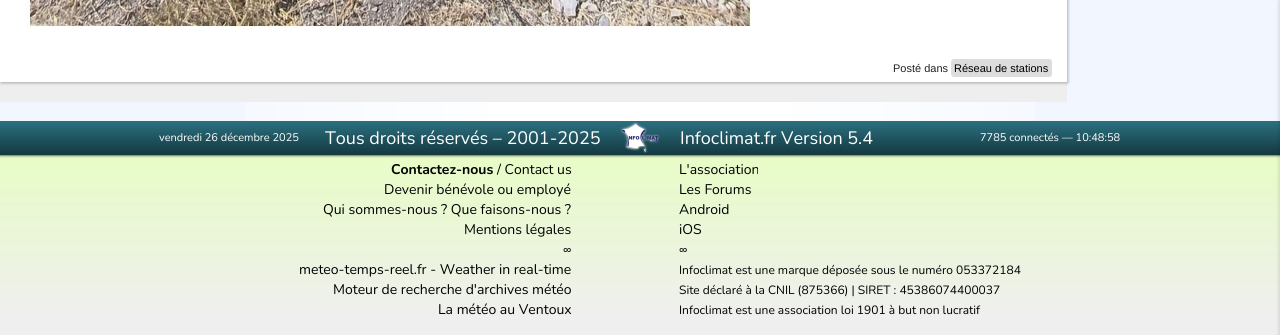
#include <cairo.h>
#include <math.h>
#include <stddef.h>


static void rgb(cairo_t *cr, int r, int g, int b)
{
	cairo_set_source_rgb(cr, r / 255.0, g / 255.0, b / 255.0);
}

static void face(cairo_t *cr, const char *family, double size, int italic, int bold)
{
	cairo_select_font_face(cr, family, italic ? CAIRO_FONT_SLANT_ITALIC : CAIRO_FONT_SLANT_NORMAL,
		bold ? CAIRO_FONT_WEIGHT_BOLD : CAIRO_FONT_WEIGHT_NORMAL);
	cairo_set_font_size(cr, size);
}

static void label(cairo_t *cr, double x, double y, const char *s)
{
	cairo_move_to(cr, x, y);
	cairo_show_text(cr, s);
}

static void rect(cairo_t *cr, double x, double y, double w, double h)
{
	cairo_rectangle(cr, x, y, w, h);
	cairo_fill(cr);
}

static void rrect(cairo_t *cr, double x, double y, double w, double h, double r)
{
	cairo_new_sub_path(cr);
	cairo_arc(cr, x + w - r, y + h - r, r, 0, M_PI / 2);
	cairo_arc(cr, x + r, y + h - r, r, M_PI / 2, M_PI);
	cairo_arc(cr, x + r, y + r, r, M_PI, 1.5 * M_PI);
	cairo_arc(cr, x + w - r, y + r, r, 1.5 * M_PI, 2 * M_PI);
	cairo_close_path(cr);
}

static void soft_shadow(cairo_t *cr, double x, double y, double w, double h, double r, double blur, double alpha)
{
	cairo_push_group_with_content(cr, CAIRO_CONTENT_ALPHA);
	cairo_set_operator(cr, CAIRO_OPERATOR_SOURCE);
	for (int i = 15; i >= -15 && fmin(w, h) + blur * i / 3 > 0; i -= 2) {
		double e = blur * i / 6;
		cairo_set_source_rgba(cr, 0, 0, 0, alpha * erfc((i - 1) / 8.5) / 2);
		rrect(cr, x - e, y - e, w + 2 * e, h + 2 * e, fmax(0, fmin(r + e + blur * .6, fmin(w, h) / 2 + e)));
		cairo_fill(cr);
	}
	cairo_pattern_t *soft = cairo_pop_group(cr);
	cairo_mask(cr, soft);
	cairo_pattern_destroy(soft);
}

static void image(cairo_t *cr, const char *path, double x, double y, double w, double h)
{
	cairo_surface_t *image = cairo_image_surface_create_from_png(path);
	cairo_save(cr);
	cairo_set_source_surface(cr, image, x, y);
	cairo_rectangle(cr, x, y, w, h);
	cairo_fill(cr);
	cairo_restore(cr);
	cairo_surface_destroy(image);
}

static void draw(cairo_t *cr) {
	cairo_pattern_t *gradient;
	rgb(cr, 239, 239, 239);
	cairo_paint(cr);
	rgb(cr, 241, 246, 255);
	rect(cr, 0, 0, 1280, 121);
	image(cr, "image0.png", 246, 102, 789, 19);
	rgb(cr, 238, 238, 238);
	rect(cr, 0, 82, 1067, 20);
	rgb(cr, 0, 0, 0);
	soft_shadow(cr, 1, -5, 1067, 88, 0, 1.5, 0.3);
	rgb(cr, 255, 255, 255);
	rect(cr, 0, 0, 1067, 82);
	image(cr, "image1.png", 25, 0, 726, 28);
	face(cr, "Liberation Sans", 11, 0, 0);
	rgb(cr, 34, 34, 34);
	label(cr, 893, 72, "Posté dans");
	rgb(cr, 221, 221, 221);
	rrect(cr, 951, 59, 101, 18, 3);
	cairo_fill(cr);
	rgb(cr, 0, 0, 0);
	label(cr, 954, 72, "Réseau de stations");
	gradient = cairo_pattern_create_linear(640, 121, 640, 320);
	cairo_pattern_add_color_stop_rgba(gradient, 0, 0.902, 1, 0.741, 1);
	cairo_pattern_add_color_stop_rgba(gradient, 1, 0.902, 1, 0.741, 0);
	cairo_set_source(cr, gradient);
	cairo_pattern_destroy(gradient);
	rect(cr, 0, 155, 1280, 154);
	cairo_save(cr);
	cairo_rectangle(cr, 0, 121, 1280, 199);
	cairo_clip(cr);
	rgb(cr, 0, 0, 0);
	soft_shadow(cr, 0, 121, 1280, 34, 0, 1.5, 1);
	cairo_restore(cr);
	gradient = cairo_pattern_create_linear(640, 121, 640, 155);
	cairo_pattern_add_color_stop_rgba(gradient, 0, 0.169, 0.443, 0.502, 1);
	cairo_pattern_add_color_stop_rgba(gradient, 1, 0.078, 0.22, 0.251, 1);
	cairo_set_source(cr, gradient);
	cairo_pattern_destroy(gradient);
	rect(cr, 0, 121, 1280, 34);
	face(cr, "Nunito", 11, 0, 0);
	rgb(cr, 255, 255, 255);
	label(cr, 159, 141, "vendredi 26 décembre 2025");
	face(cr, "Nunito", 18, 0, 0);
	label(cr, 325, 144, "Tous droits réservés – 2001-2025");
	image(cr, "image2.png", 620, 122, 40, 32);
	label(cr, 680, 144, "Infoclimat.fr Version 5.4");
	face(cr, "Nunito", 11, 0, 0);
	label(cr, 980, 141, "7785 connectés — 10:48:58");
	face(cr, "Nunito", 14, 0, 1);
	rgb(cr, 0, 0, 0);
	label(cr, 391, 174, "Contactez-nous");
	face(cr, "Nunito", 14, 0, 0);
	label(cr, 497, 174, "/ Contact us");
	label(cr, 384, 194, "Devenir bénévole ou employé");
	label(cr, 323, 214, "Qui sommes-nous ? Que faisons-nous ?");
	label(cr, 464, 234, "Mentions légales");
	label(cr, 563, 254, "∞");
	label(cr, 299, 274, "meteo-temps-reel.fr - Weather in real-time");
	label(cr, 333, 294, "Moteur de recherche d'archives météo");
	label(cr, 438, 314, "La météo au Ventoux");
	label(cr, 679, 174, "L'association");
	label(cr, 679, 194, "Les Forums");
	label(cr, 679, 214, "Android");
	label(cr, 679, 234, "iOS");
	label(cr, 679, 254, "∞");
	face(cr, "Nunito", 12, 0, 0);
	label(cr, 679, 274, "Infoclimat est une marque déposée sous le numéro 053372184");
	label(cr, 679, 294, "Site déclaré à la CNIL (875366) | SIRET : 45386074400037");
	label(cr, 679, 314, "Infoclimat est une association loi 1901 à but non lucratif");
	rgb(cr, 0, 0, 0);
	soft_shadow(cr, 1280, 1, 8, 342, 0, 2.5, 0.2);
}

int main(void) {
	cairo_surface_t *surface = cairo_image_surface_create(CAIRO_FORMAT_RGB24, 1280, 335);
	cairo_t *cr = cairo_create(surface);
	cairo_font_options_t *options = cairo_font_options_create();
	cairo_font_options_set_hint_metrics(options, CAIRO_HINT_METRICS_OFF);
	cairo_font_options_set_hint_style(options, CAIRO_HINT_STYLE_NONE);
	cairo_set_font_options(cr, options);
	cairo_set_miter_limit(cr, 4);
	draw(cr);
	cairo_surface_write_to_png(surface, "render.png");
	cairo_font_options_destroy(options);
	cairo_destroy(cr);
	cairo_surface_destroy(surface);
	return 0;
}
